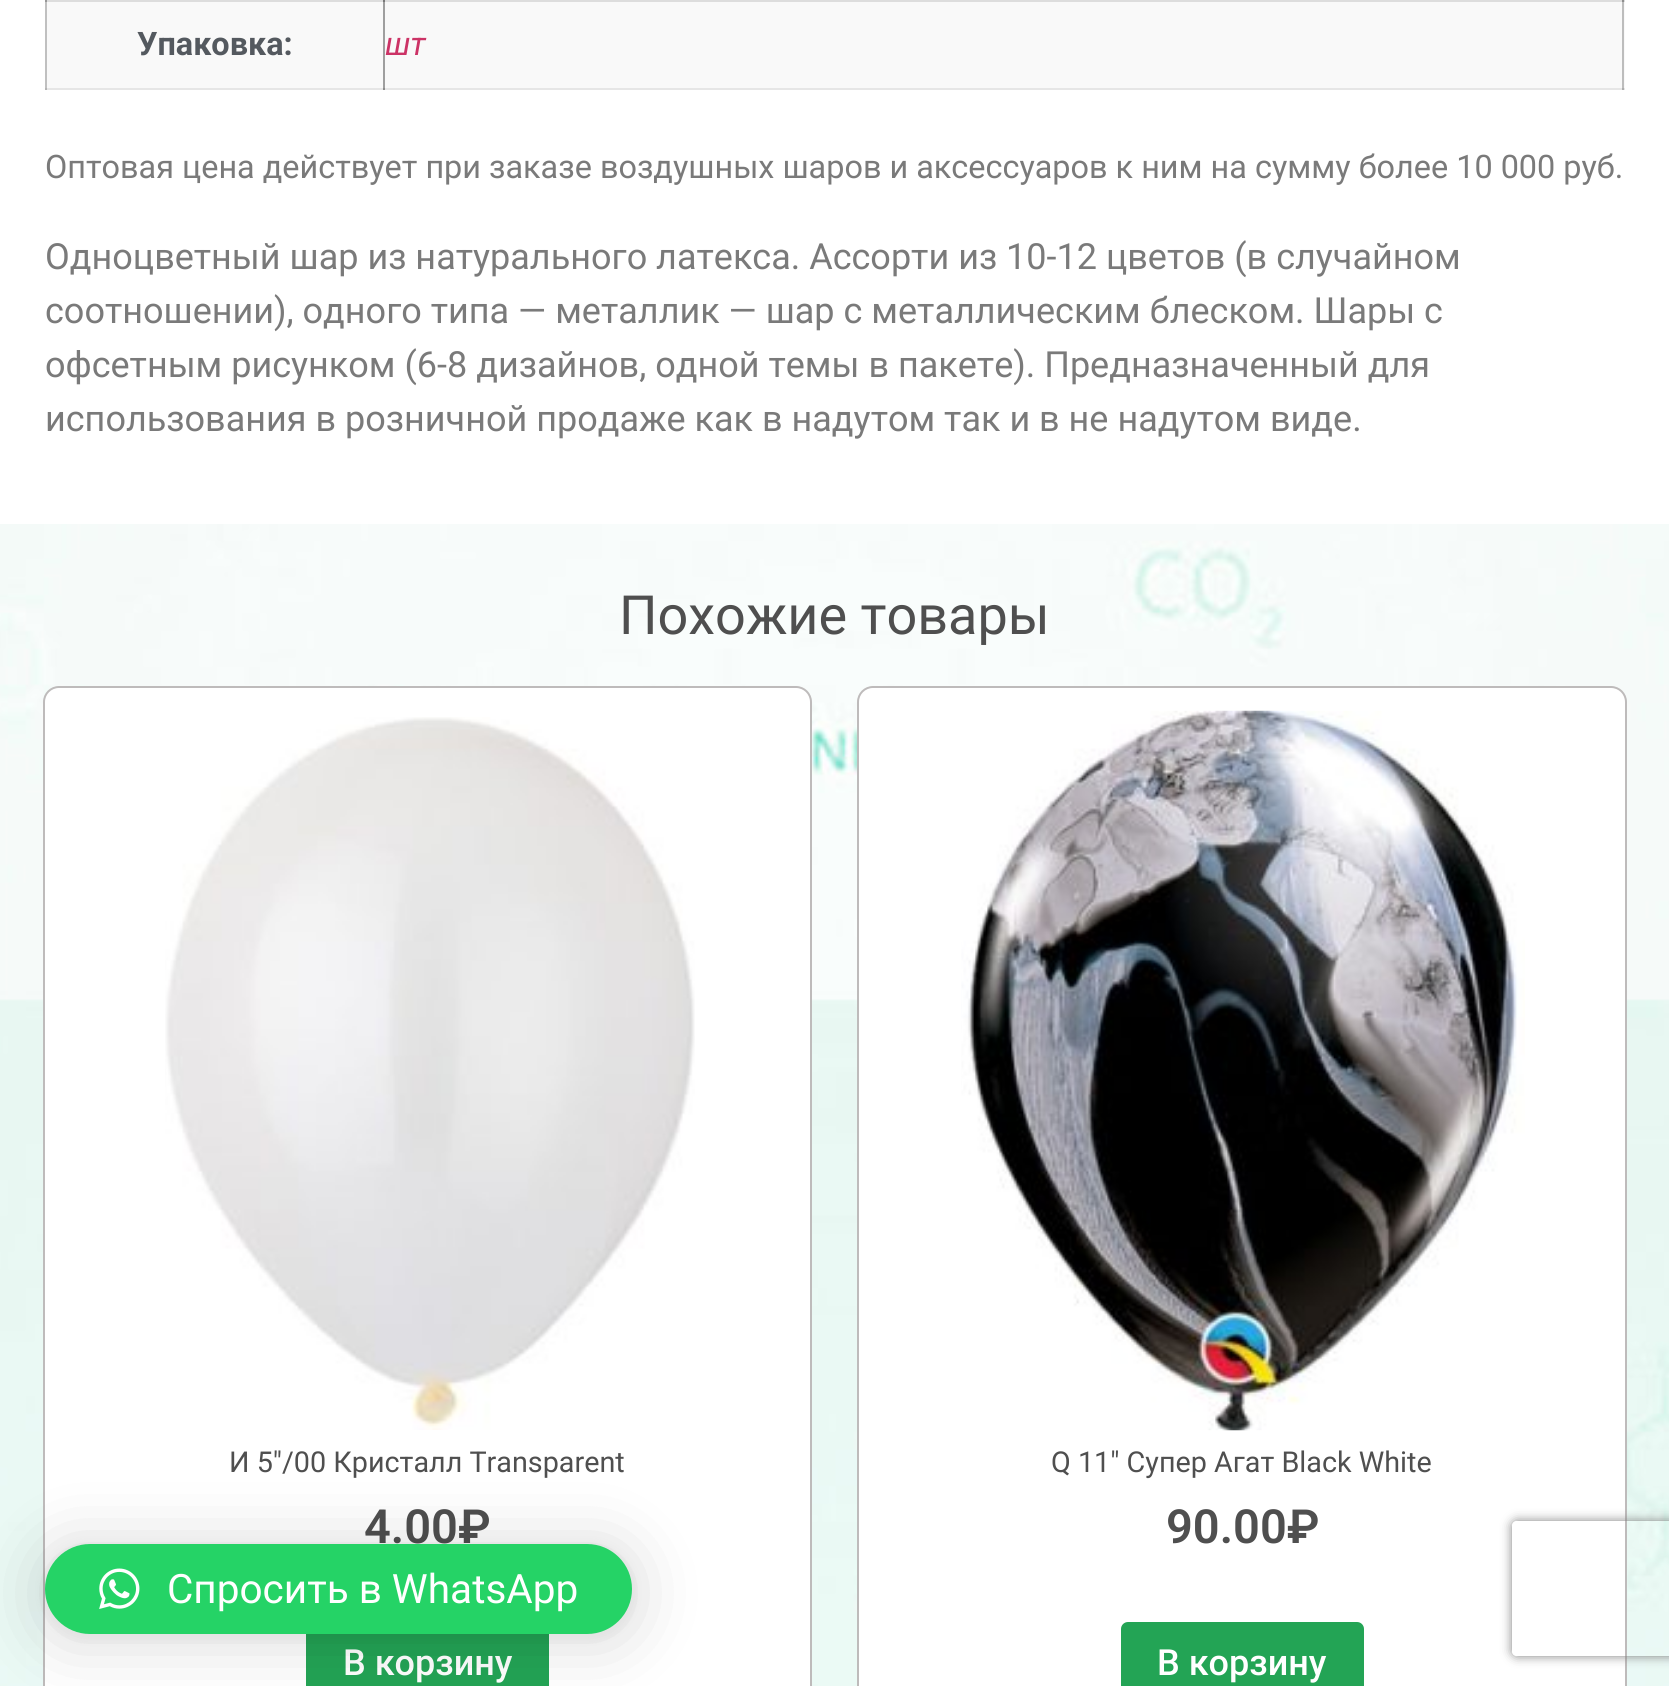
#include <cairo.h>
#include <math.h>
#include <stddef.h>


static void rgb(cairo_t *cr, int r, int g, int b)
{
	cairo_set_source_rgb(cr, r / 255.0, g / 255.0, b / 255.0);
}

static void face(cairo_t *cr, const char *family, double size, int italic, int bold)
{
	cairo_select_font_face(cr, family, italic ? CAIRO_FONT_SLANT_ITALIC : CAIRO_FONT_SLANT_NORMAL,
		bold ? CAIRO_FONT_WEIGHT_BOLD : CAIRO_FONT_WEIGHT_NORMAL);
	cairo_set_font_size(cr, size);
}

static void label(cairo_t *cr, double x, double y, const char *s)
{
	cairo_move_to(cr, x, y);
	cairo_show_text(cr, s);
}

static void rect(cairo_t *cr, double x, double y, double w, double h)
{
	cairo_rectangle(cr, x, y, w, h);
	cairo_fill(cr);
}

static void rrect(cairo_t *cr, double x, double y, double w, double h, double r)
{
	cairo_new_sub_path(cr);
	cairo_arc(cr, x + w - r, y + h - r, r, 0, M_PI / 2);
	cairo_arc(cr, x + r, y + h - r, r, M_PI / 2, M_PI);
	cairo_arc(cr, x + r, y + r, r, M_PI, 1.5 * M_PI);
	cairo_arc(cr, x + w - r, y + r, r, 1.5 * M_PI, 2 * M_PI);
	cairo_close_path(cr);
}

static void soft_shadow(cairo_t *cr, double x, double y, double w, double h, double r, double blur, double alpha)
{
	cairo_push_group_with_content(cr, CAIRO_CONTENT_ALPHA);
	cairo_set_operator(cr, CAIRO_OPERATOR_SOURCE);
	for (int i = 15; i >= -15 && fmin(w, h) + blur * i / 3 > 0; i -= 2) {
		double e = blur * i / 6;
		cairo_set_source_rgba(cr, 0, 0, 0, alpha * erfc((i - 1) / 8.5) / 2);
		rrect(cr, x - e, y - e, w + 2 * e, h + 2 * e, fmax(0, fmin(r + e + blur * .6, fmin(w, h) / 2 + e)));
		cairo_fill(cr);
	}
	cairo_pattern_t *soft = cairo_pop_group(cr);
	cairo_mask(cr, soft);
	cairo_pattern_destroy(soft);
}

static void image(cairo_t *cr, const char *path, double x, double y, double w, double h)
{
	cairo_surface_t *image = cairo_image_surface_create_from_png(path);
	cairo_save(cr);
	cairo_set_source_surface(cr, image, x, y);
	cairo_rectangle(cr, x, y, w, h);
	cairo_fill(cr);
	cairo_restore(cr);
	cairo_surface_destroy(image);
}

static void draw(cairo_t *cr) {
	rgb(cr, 255, 255, 255);
	cairo_paint(cr);
	rgb(cr, 192, 192, 192);
	rect(cr, 45, 0, 2, 90);
	rgb(cr, 230, 230, 230);
	rect(cr, 45, 88, 1580, 2);
	rgb(cr, 179, 179, 179);
	rect(cr, 45, 88, 2, 2);
	rgb(cr, 139, 139, 139);
	rect(cr, 383, 88, 2, 2);
	rgb(cr, 173, 173, 173);
	rect(cr, 1622, 88, 2, 2);
	rgb(cr, 221, 221, 221);
	rect(cr, 47, 0, 1578, 2);
	rgb(cr, 119, 119, 119);
	rect(cr, 383, 0, 2, 2);
	rgb(cr, 150, 150, 150);
	rect(cr, 45, 0, 2, 2);
	rgb(cr, 142, 142, 142);
	rect(cr, 1622, 0, 2, 2);
	rgb(cr, 249, 249, 249);
	rect(cr, 47, 2, 336, 86);
	rgb(cr, 159, 159, 159);
	rect(cr, 383, 2, 2, 86);
	face(cr, "Roboto", 32.4, 0, 1);
	rgb(cr, 84, 89, 95);
	label(cr, 137, 55, "Упаковка:");
	rgb(cr, 249, 249, 249);
	rect(cr, 385, 2, 1240, 86);
	rgb(cr, 189, 189, 189);
	rect(cr, 1622, 2, 2, 86);
	face(cr, "Roboto", 32.4, 1, 0);
	rgb(cr, 204, 51, 102);
	label(cr, 385, 55, "шт");
	face(cr, "Roboto", 32.4, 0, 0);
	rgb(cr, 122, 122, 122);
	label(cr, 45, 178, "Оптовая цена действует при заказе воздушных шаров и аксессуаров к ним на сумму более 10 000 руб.");
	face(cr, "Roboto", 36, 0, 0);
	label(cr, 45, 269, "Одноцветный шар из натурального латекса. Ассорти из 10-12 цветов (в случайном");
	label(cr, 45, 323, "соотношении), одного типа — металлик — шар с металлическим блеском. Шары с");
	label(cr, 45, 377, "офсетным рисунком (6-8 дизайнов, одной темы в пакете). Предназначенный для");
	label(cr, 45, 431, "использования в розничной продаже как в надутом так и в не надутом виде.");
	image(cr, "image0.png", 0, 524, 1669, 1162);
	face(cr, "Roboto", 54, 0, 0);
	rgb(cr, 79, 79, 79);
	label(cr, 619, 634, "Похожие товары");
	rgb(cr, 255, 255, 255);
	rrect(cr, 44, 687, 767, 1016, 15);
	cairo_fill_preserve(cr);
	rgb(cr, 190, 187, 187);
	cairo_stroke(cr);
	image(cr, "image1.png", 165, 717, 530, 713);
	face(cr, "Roboto", 28.75, 0, 0);
	rgb(cr, 79, 79, 79);
	label(cr, 229, 1472, "И 5″/00 Кристалл Transparent");
	face(cr, "Roboto SemiBold", 47, 0, 0);
	label(cr, 364, 1543, "4.00₽");
	rgb(cr, 35, 164, 85);
	rect(cr, 306, 1634, 243, 52);
	face(cr, "Roboto Medium", 36, 0, 0);
	rgb(cr, 255, 255, 255);
	label(cr, 343, 1675, "В корзину");
	rrect(cr, 858, 687, 768, 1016, 15);
	cairo_fill_preserve(cr);
	rgb(cr, 190, 187, 187);
	cairo_stroke(cr);
	image(cr, "image2.png", 961, 710, 564, 721);
	face(cr, "Roboto", 28.75, 0, 0);
	rgb(cr, 79, 79, 79);
	label(cr, 1051, 1472, "Q 11″ Супер Агат Black White");
	face(cr, "Roboto SemiBold", 47, 0, 0);
	label(cr, 1166, 1543, "90.00₽");
	rgb(cr, 35, 164, 85);
	rrect(cr, 1121, 1622, 243, 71, 7);
	cairo_fill(cr);
	face(cr, "Roboto Medium", 36, 0, 0);
	rgb(cr, 255, 255, 255);
	label(cr, 1157, 1675, "В корзину");
	rgb(cr, 0, 0, 0);
	soft_shadow(cr, 45, 1548, 587, 90, 45, 36, 0.16);
	soft_shadow(cr, 45, 1546, 587, 90, 45, 7, 0.06);
	rgb(cr, 37, 211, 102);
	rrect(cr, 45, 1544, 587, 90, 45);
	cairo_fill(cr);
	image(cr, "image3.png", 99, 1568, 41, 41);
	face(cr, "Roboto", 40.5, 0, 0);
	rgb(cr, 255, 255, 255);
	label(cr, 167, 1603, "Спросить в WhatsApp");
	cairo_save(cr);
	cairo_set_fill_rule(cr, CAIRO_FILL_RULE_EVEN_ODD);
	cairo_new_path(cr);
	cairo_move_to(cr, 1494, 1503);
	cairo_line_to(cr, 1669, 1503);
	cairo_line_to(cr, 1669, 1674);
	cairo_line_to(cr, 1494, 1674);
	cairo_close_path(cr);
	cairo_move_to(cr, 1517, 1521);
	cairo_line_to(cr, 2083, 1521);
	cairo_curve_to(cr, 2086, 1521, 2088, 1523, 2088, 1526);
	cairo_line_to(cr, 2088, 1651);
	cairo_curve_to(cr, 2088, 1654, 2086, 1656, 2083, 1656);
	cairo_line_to(cr, 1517, 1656);
	cairo_curve_to(cr, 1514, 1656, 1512, 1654, 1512, 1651);
	cairo_line_to(cr, 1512, 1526);
	cairo_curve_to(cr, 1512, 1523, 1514, 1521, 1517, 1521);
	cairo_close_path(cr);
	cairo_clip(cr);
	rgb(cr, 128, 128, 128);
	soft_shadow(cr, 1512, 1521, 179, 135, 5, 5.5, 1);
	cairo_restore(cr);
}

int main(void) {
	cairo_surface_t *surface = cairo_image_surface_create(CAIRO_FORMAT_RGB24, 1669, 1686);
	cairo_t *cr = cairo_create(surface);
	cairo_font_options_t *options = cairo_font_options_create();
	cairo_font_options_set_hint_metrics(options, CAIRO_HINT_METRICS_OFF);
	cairo_font_options_set_hint_style(options, CAIRO_HINT_STYLE_NONE);
	cairo_set_font_options(cr, options);
	cairo_set_miter_limit(cr, 4);
	draw(cr);
	cairo_surface_write_to_png(surface, "render.png");
	cairo_font_options_destroy(options);
	cairo_destroy(cr);
	cairo_surface_destroy(surface);
	return 0;
}
